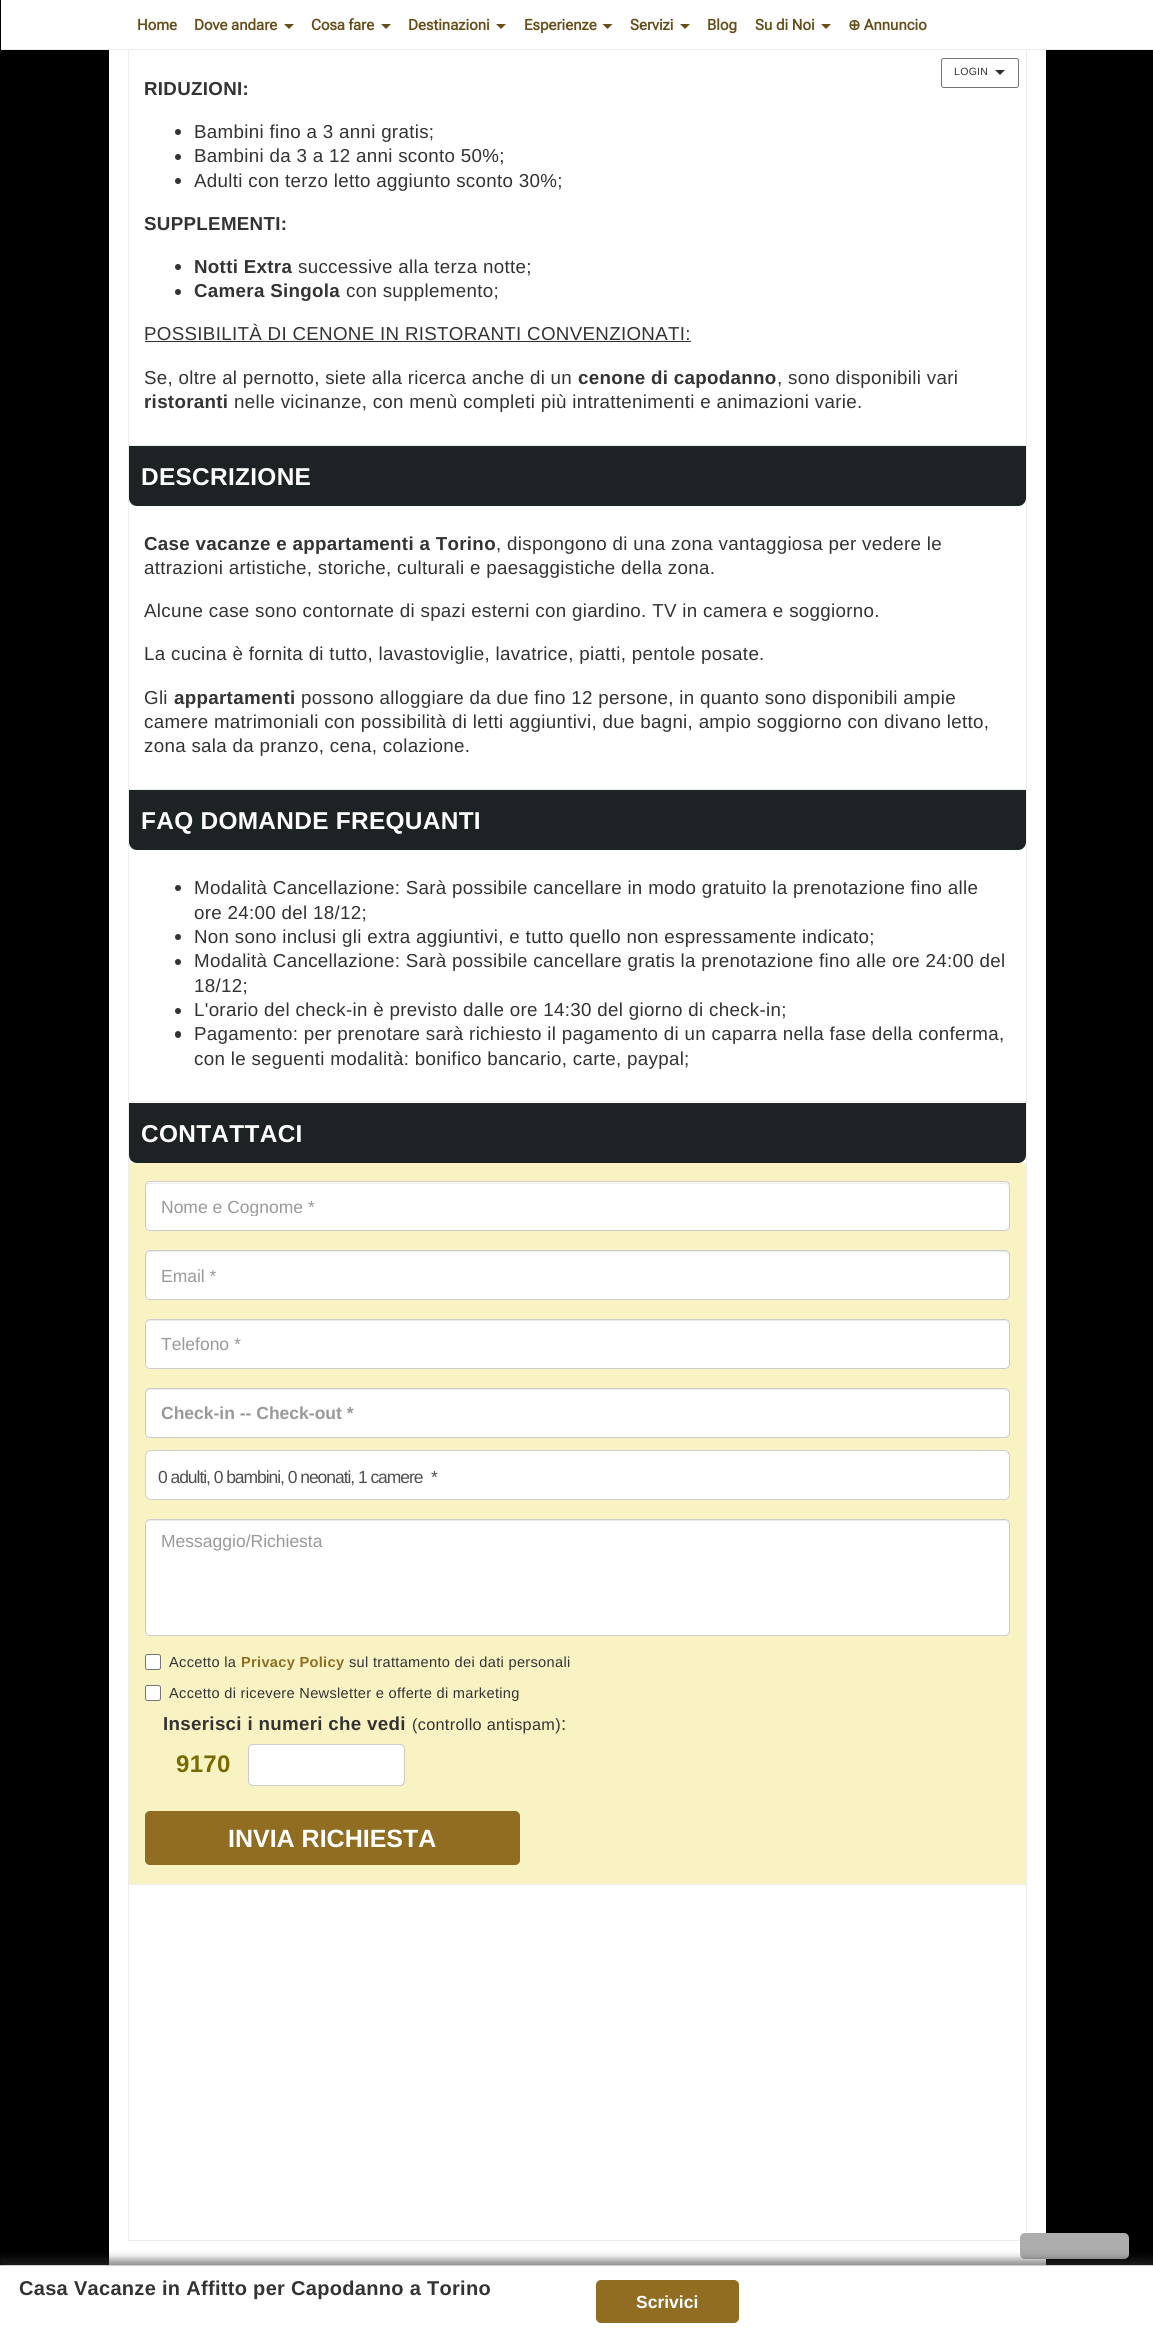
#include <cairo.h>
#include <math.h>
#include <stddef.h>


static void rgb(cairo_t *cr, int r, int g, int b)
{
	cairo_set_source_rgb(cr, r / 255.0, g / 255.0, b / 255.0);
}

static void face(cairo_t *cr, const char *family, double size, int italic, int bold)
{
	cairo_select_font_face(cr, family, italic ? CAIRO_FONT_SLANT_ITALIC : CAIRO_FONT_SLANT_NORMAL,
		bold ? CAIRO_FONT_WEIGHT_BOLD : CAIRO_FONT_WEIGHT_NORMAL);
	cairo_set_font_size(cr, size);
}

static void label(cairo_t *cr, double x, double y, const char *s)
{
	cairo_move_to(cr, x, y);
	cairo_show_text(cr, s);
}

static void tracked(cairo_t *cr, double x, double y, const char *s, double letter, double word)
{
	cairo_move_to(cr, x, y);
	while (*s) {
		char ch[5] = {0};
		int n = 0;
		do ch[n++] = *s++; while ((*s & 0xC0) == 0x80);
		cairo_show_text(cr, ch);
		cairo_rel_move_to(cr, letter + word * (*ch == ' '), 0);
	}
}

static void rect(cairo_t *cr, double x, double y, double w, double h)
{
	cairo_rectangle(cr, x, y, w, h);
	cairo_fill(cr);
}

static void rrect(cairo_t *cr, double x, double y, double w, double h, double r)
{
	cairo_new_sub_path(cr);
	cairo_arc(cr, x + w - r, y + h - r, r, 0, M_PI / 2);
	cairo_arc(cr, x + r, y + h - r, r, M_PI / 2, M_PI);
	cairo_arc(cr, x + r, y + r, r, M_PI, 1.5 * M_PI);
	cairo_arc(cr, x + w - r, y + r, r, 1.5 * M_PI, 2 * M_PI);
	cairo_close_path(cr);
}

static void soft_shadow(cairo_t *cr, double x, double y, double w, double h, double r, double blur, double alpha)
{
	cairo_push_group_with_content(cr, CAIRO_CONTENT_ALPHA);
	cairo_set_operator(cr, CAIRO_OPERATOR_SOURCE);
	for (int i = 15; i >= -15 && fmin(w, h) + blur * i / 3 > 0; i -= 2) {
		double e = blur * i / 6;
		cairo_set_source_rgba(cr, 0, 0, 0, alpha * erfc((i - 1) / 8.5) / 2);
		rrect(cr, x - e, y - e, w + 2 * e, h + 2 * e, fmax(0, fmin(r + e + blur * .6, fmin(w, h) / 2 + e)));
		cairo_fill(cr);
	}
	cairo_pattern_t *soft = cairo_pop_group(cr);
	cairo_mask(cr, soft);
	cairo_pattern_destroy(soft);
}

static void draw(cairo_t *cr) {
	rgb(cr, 0, 0, 0);
	cairo_paint(cr);
	rgb(cr, 255, 255, 255);
	rect(cr, 1, 0, 1152, 49);
	rgb(cr, 236, 236, 236);
	rect(cr, 1, 49, 1152, 1);
	face(cr, "Roboto Flex", 15, 0, 1);
	rgb(cr, 102, 78, 25);
	label(cr, 137, 30, "Home");
	label(cr, 194, 30, "Dove andare");
	cairo_new_path(cr);
	cairo_move_to(cr, 284, 24);
	cairo_line_to(cr, 294, 24);
	cairo_line_to(cr, 289, 29);
	cairo_close_path(cr);
	cairo_fill(cr);
	label(cr, 311, 30, "Cosa fare");
	cairo_new_path(cr);
	cairo_move_to(cr, 381, 24);
	cairo_line_to(cr, 391, 24);
	cairo_line_to(cr, 386, 29);
	cairo_close_path(cr);
	cairo_fill(cr);
	label(cr, 408, 30, "Destinazioni");
	cairo_new_path(cr);
	cairo_move_to(cr, 496, 24);
	cairo_line_to(cr, 506, 24);
	cairo_line_to(cr, 501, 29);
	cairo_close_path(cr);
	cairo_fill(cr);
	label(cr, 524, 30, "Esperienze");
	cairo_new_path(cr);
	cairo_move_to(cr, 602.5, 24);
	cairo_line_to(cr, 612.5, 24);
	cairo_line_to(cr, 607.5, 29);
	cairo_close_path(cr);
	cairo_fill(cr);
	label(cr, 630, 30, "Servizi");
	cairo_new_path(cr);
	cairo_move_to(cr, 680, 24);
	cairo_line_to(cr, 690, 24);
	cairo_line_to(cr, 685, 29);
	cairo_close_path(cr);
	cairo_fill(cr);
	label(cr, 707, 30, "Blog");
	label(cr, 755, 30, "Su di Noi");
	cairo_new_path(cr);
	cairo_move_to(cr, 821, 24);
	cairo_line_to(cr, 831, 24);
	cairo_line_to(cr, 826, 29);
	cairo_close_path(cr);
	cairo_fill(cr);
	face(cr, "DejaVu Sans", 15, 0, 1);
	label(cr, 848, 30, "⊕");
	face(cr, "Roboto Flex", 15, 0, 1);
	label(cr, 864, 30, "Annuncio");
	rgb(cr, 255, 255, 255);
	rect(cr, 109, 50, 937, 2215);
	rrect(cr, 941.5, 58.5, 77, 29, 2);
	rgb(cr, 119, 119, 119);
	cairo_set_line_width(cr, 1);
	cairo_stroke(cr);
	face(cr, "Liberation Sans", 10.5, 0, 0);
	rgb(cr, 51, 51, 51);
	tracked(cr, 954, 75, "LOGIN", 0.31, 0);
	rgb(cr, 48, 46, 46);
	cairo_new_path(cr);
	cairo_move_to(cr, 995, 70);
	cairo_line_to(cr, 1005, 70);
	cairo_line_to(cr, 1000, 75);
	cairo_close_path(cr);
	cairo_fill(cr);
	rgb(cr, 237, 237, 237);
	rect(cr, 1026, 50, 1, 395);
	rect(cr, 128, 50, 1, 395);
	face(cr, "Liberation Sans", 18.75, 0, 1);
	rgb(cr, 51, 51, 51);
	tracked(cr, 144, 95, "RIDUZIONI:", 0.31, 0);
	cairo_new_path(cr);
	cairo_arc(cr, 178, 132, 3, 0, 2 * M_PI);
	cairo_fill(cr);
	face(cr, "Liberation Sans", 18.75, 0, 0);
	tracked(cr, 194, 138, "Bambini fino a 3 anni gratis;", 0.31, 0);
	cairo_new_path(cr);
	cairo_arc(cr, 178, 157, 3, 0, 2 * M_PI);
	cairo_fill(cr);
	tracked(cr, 194, 162, "Bambini da 3 a 12 anni sconto 50%;", 0.31, 0);
	cairo_new_path(cr);
	cairo_arc(cr, 178, 181, 3, 0, 2 * M_PI);
	cairo_fill(cr);
	tracked(cr, 194, 187, "Adulti con terzo letto aggiunto sconto 30%;", 0.31, 0);
	face(cr, "Liberation Sans", 18.75, 0, 1);
	tracked(cr, 144, 230, "SUPPLEMENTI:", 0.31, 0);
	cairo_new_path(cr);
	cairo_arc(cr, 178, 267, 3, 0, 2 * M_PI);
	cairo_fill(cr);
	tracked(cr, 194, 273, "Notti Extra", 0.31, 0);
	face(cr, "Liberation Sans", 18.75, 0, 0);
	tracked(cr, 298, 273, "successive alla terza notte;", 0.31, 0);
	cairo_new_path(cr);
	cairo_arc(cr, 178, 292, 3, 0, 2 * M_PI);
	cairo_fill(cr);
	face(cr, "Liberation Sans", 18.75, 0, 1);
	tracked(cr, 194, 297, "Camera Singola", 0.31, 0);
	face(cr, "Liberation Sans", 18.75, 0, 0);
	tracked(cr, 346, 297, "con supplemento;", 0.31, 0);
	tracked(cr, 144, 340, "POSSIBILITÀ DI CENONE IN RISTORANTI CONVENZIONATI:", 0.31, 0);
	rect(cr, 145, 341, 546, 1);
	tracked(cr, 144, 384, "Se, oltre al pernotto, siete alla ricerca anche di un", 0.31, 0);
	face(cr, "Liberation Sans", 18.75, 0, 1);
	tracked(cr, 578, 384, "cenone di capodanno", 0.31, 0);
	face(cr, "Liberation Sans", 18.75, 0, 0);
	tracked(cr, 777, 384, ", sono disponibili vari", 0.31, 0);
	face(cr, "Liberation Sans", 18.75, 0, 1);
	tracked(cr, 144, 408, "ristoranti", 0.31, 0);
	face(cr, "Liberation Sans", 18.75, 0, 0);
	tracked(cr, 234, 408, "nelle vicinanze, con menù completi più intrattenimenti e animazioni varie.", 0.31, 0);
	rgb(cr, 237, 237, 237);
	rect(cr, 128, 445, 900, 1);
	rect(cr, 1026, 445, 1, 344);
	rect(cr, 128, 445, 1, 344);
	rgb(cr, 29, 34, 36);
	cairo_new_path(cr);
	cairo_move_to(cr, 129, 446);
	cairo_line_to(cr, 1026, 446);
	cairo_line_to(cr, 1026, 498);
	cairo_curve_to(cr, 1026, 502.5, 1022.5, 506, 1018, 506);
	cairo_line_to(cr, 137, 506);
	cairo_curve_to(cr, 132.5, 506, 129, 502.5, 129, 498);
	cairo_close_path(cr);
	cairo_fill(cr);
	face(cr, "Liberation Sans", 24.4, 0, 1);
	rgb(cr, 255, 255, 255);
	tracked(cr, 141, 485, "DESCRIZIONE", 0.31, 0);
	face(cr, "Liberation Sans", 18.75, 0, 1);
	rgb(cr, 51, 51, 51);
	tracked(cr, 144, 550, "Case vacanze e appartamenti a Torino", 0.31, 0);
	face(cr, "Liberation Sans", 18.75, 0, 0);
	tracked(cr, 496, 550, ", dispongono di una zona vantaggiosa per vedere le", 0.31, 0);
	tracked(cr, 144, 574, "attrazioni artistiche, storiche, culturali e paesaggistiche della zona.", 0.31, 0);
	tracked(cr, 144, 617, "Alcune case sono contornate di spazi esterni con giardino. TV in camera e soggiorno.", 0.31, 0);
	tracked(cr, 144, 660, "La cucina è fornita di tutto, lavastoviglie, lavatrice, piatti, pentole posate.", 0.31, 0);
	tracked(cr, 144, 704, "Gli", 0.31, 0);
	face(cr, "Liberation Sans", 18.75, 0, 1);
	tracked(cr, 174, 704, "appartamenti", 0.31, 0);
	face(cr, "Liberation Sans", 18.75, 0, 0);
	tracked(cr, 301, 704, "possono alloggiare da due fino 12 persone, in quanto sono disponibili ampie", 0.31, 0);
	tracked(cr, 144, 728, "camere matrimoniali con possibilità di letti aggiuntivi, due bagni, ampio soggiorno con divano letto,", 0.31, 0);
	tracked(cr, 144, 752, "zona sala da pranzo, cena, colazione.", 0.31, 0);
	rgb(cr, 237, 237, 237);
	rect(cr, 128, 789, 900, 1);
	rect(cr, 1026, 789, 1, 312);
	rect(cr, 128, 789, 1, 312);
	rgb(cr, 29, 34, 36);
	cairo_new_path(cr);
	cairo_move_to(cr, 129, 790);
	cairo_line_to(cr, 1026, 790);
	cairo_line_to(cr, 1026, 842);
	cairo_curve_to(cr, 1026, 846.5, 1022.5, 850, 1018, 850);
	cairo_line_to(cr, 137, 850);
	cairo_curve_to(cr, 132.5, 850, 129, 846.5, 129, 842);
	cairo_close_path(cr);
	cairo_fill(cr);
	face(cr, "Liberation Sans", 24.4, 0, 1);
	rgb(cr, 255, 255, 255);
	tracked(cr, 141, 829, "FAQ DOMANDE FREQUANTI", 0.31, 0);
	rgb(cr, 51, 51, 51);
	cairo_new_path(cr);
	cairo_arc(cr, 178, 888, 3, 0, 2 * M_PI);
	cairo_fill(cr);
	face(cr, "Liberation Sans", 18.75, 0, 0);
	tracked(cr, 194, 894, "Modalità Cancellazione: Sarà possibile cancellare in modo gratuito la prenotazione fino alle", 0.31, 0);
	tracked(cr, 194, 919, "ore 24:00 del 18/12;", 0.31, 0);
	cairo_new_path(cr);
	cairo_arc(cr, 178, 937, 3, 0, 2 * M_PI);
	cairo_fill(cr);
	tracked(cr, 194, 943, "Non sono inclusi gli extra aggiuntivi, e tutto quello non espressamente indicato;", 0.31, 0);
	cairo_new_path(cr);
	cairo_arc(cr, 178, 962, 3, 0, 2 * M_PI);
	cairo_fill(cr);
	tracked(cr, 194, 967, "Modalità Cancellazione: Sarà possibile cancellare gratis la prenotazione fino alle ore 24:00 del", 0.31, 0);
	tracked(cr, 194, 992, "18/12;", 0.31, 0);
	cairo_new_path(cr);
	cairo_arc(cr, 178, 1011, 3, 0, 2 * M_PI);
	cairo_fill(cr);
	tracked(cr, 194, 1016, "L'orario del check-in è previsto dalle ore 14:30 del giorno di check-in;", 0.31, 0);
	rrect(cr, 175, 1031, 6, 7, 3);
	cairo_fill(cr);
	tracked(cr, 194, 1040, "Pagamento: per prenotare sarà richiesto il pagamento di un caparra nella fase della conferma,", 0.31, 0);
	tracked(cr, 194, 1065, "con le seguenti modalità: bonifico bancario, carte, paypal;", 0.31, 0);
	rgb(cr, 237, 237, 237);
	rect(cr, 128, 1101, 900, 1);
	rect(cr, 1026, 1101, 1, 783);
	rect(cr, 128, 1101, 1, 783);
	rgb(cr, 29, 34, 36);
	cairo_new_path(cr);
	cairo_move_to(cr, 129, 1103);
	cairo_line_to(cr, 1026, 1103);
	cairo_line_to(cr, 1026, 1155);
	cairo_curve_to(cr, 1026, 1159.5, 1022.5, 1163, 1018, 1163);
	cairo_line_to(cr, 137, 1163);
	cairo_curve_to(cr, 132.5, 1163, 129, 1159.5, 129, 1155);
	cairo_close_path(cr);
	cairo_fill(cr);
	face(cr, "Liberation Sans", 24.4, 0, 1);
	rgb(cr, 255, 255, 255);
	tracked(cr, 141, 1142, "CONTATTACI", 0.31, 0);
	rgb(cr, 249, 243, 195);
	rect(cr, 129, 1163, 897, 721);
	rgb(cr, 255, 255, 255);
	rrect(cr, 145, 1181, 865, 50, 5);
	cairo_fill(cr);
	rgb(cr, 236, 236, 236);
	cairo_new_path(cr);
	cairo_move_to(cr, 150, 1184);
	cairo_line_to(cr, 1005, 1184);
	cairo_curve_to(cr, 1007, 1184, 1009, 1185, 1009, 1188);
	cairo_curve_to(cr, 1009, 1185, 1008, 1183, 1005, 1183);
	cairo_line_to(cr, 150, 1183);
	cairo_curve_to(cr, 147, 1183, 146, 1185, 146, 1188);
	cairo_curve_to(cr, 146, 1185, 148, 1184, 150, 1184);
	cairo_close_path(cr);
	cairo_fill(cr);
	rrect(cr, 145.5, 1181.5, 864, 49, 4.5);
	rgb(cr, 204, 204, 204);
	cairo_stroke(cr);
	cairo_save(cr);
	cairo_rectangle(cr, 161, 1196, 833, 20);
	cairo_clip(cr);
	face(cr, "Liberation Sans", 17.5, 0, 0);
	rgb(cr, 153, 153, 153);
	label(cr, 161, 1213, "Nome e Cognome *");
	cairo_restore(cr);
	rgb(cr, 255, 255, 255);
	rrect(cr, 145, 1250, 865, 50, 5);
	cairo_fill(cr);
	rgb(cr, 236, 236, 236);
	cairo_new_path(cr);
	cairo_move_to(cr, 150, 1252);
	cairo_line_to(cr, 1005, 1252);
	cairo_curve_to(cr, 1007, 1252, 1009, 1254, 1009, 1256);
	cairo_curve_to(cr, 1009, 1253, 1008, 1251, 1005, 1251);
	cairo_line_to(cr, 150, 1251);
	cairo_curve_to(cr, 147, 1251, 146, 1253, 146, 1256);
	cairo_curve_to(cr, 146, 1254, 148, 1252, 150, 1252);
	cairo_close_path(cr);
	cairo_fill(cr);
	rrect(cr, 145.5, 1250.5, 864, 49, 4.5);
	rgb(cr, 204, 204, 204);
	cairo_stroke(cr);
	face(cr, "Liberation Sans", 17.5, 0, 0);
	rgb(cr, 153, 153, 153);
	label(cr, 161, 1282, "Email *");
	rgb(cr, 255, 255, 255);
	rrect(cr, 145, 1319, 865, 50, 5);
	cairo_fill(cr);
	rgb(cr, 236, 236, 236);
	cairo_new_path(cr);
	cairo_move_to(cr, 150, 1321);
	cairo_line_to(cr, 1005, 1321);
	cairo_curve_to(cr, 1007, 1321, 1009, 1323, 1009, 1325);
	cairo_curve_to(cr, 1009, 1322, 1008, 1320, 1005, 1320);
	cairo_line_to(cr, 150, 1320);
	cairo_curve_to(cr, 147, 1320, 146, 1322, 146, 1325);
	cairo_curve_to(cr, 146, 1323, 148, 1321, 150, 1321);
	cairo_close_path(cr);
	cairo_fill(cr);
	rrect(cr, 145.5, 1319.5, 864, 49, 4.5);
	rgb(cr, 204, 204, 204);
	cairo_stroke(cr);
	rgb(cr, 153, 153, 153);
	label(cr, 161, 1350, "Telefono *");
	rgb(cr, 255, 255, 255);
	rrect(cr, 145, 1388, 865, 50, 5);
	cairo_fill(cr);
	rgb(cr, 236, 236, 236);
	cairo_new_path(cr);
	cairo_move_to(cr, 150, 1390);
	cairo_line_to(cr, 1005, 1390);
	cairo_curve_to(cr, 1007, 1390, 1009, 1392, 1009, 1394);
	cairo_curve_to(cr, 1009, 1391, 1008, 1389, 1005, 1389);
	cairo_line_to(cr, 150, 1389);
	cairo_curve_to(cr, 147, 1389, 146, 1391, 146, 1394);
	cairo_curve_to(cr, 146, 1392, 148, 1390, 150, 1390);
	cairo_close_path(cr);
	cairo_fill(cr);
	rrect(cr, 145.5, 1388.5, 864, 49, 4.5);
	rgb(cr, 204, 204, 204);
	cairo_stroke(cr);
	face(cr, "Liberation Sans", 17.5, 0, 1);
	rgb(cr, 153, 153, 153);
	label(cr, 161, 1419, "Check-in -- Check-out *");
	rgb(cr, 255, 255, 255);
	rrect(cr, 145.5, 1450.5, 864, 49, 5.5);
	cairo_fill_preserve(cr);
	rgb(cr, 206, 206, 206);
	cairo_stroke(cr);
	face(cr, "Liberation Sans", 17.5, 0, 0);
	rgb(cr, 79, 79, 79);
	tracked(cr, 158, 1483, "0 adulti, 0 bambini, 0 neonati, 1 camere", -1.05, 0);
	tracked(cr, 431, 1483, "*", -1.05, 0);
	rgb(cr, 255, 255, 255);
	rrect(cr, 145, 1519, 865, 117, 5);
	cairo_fill(cr);
	rgb(cr, 236, 236, 236);
	cairo_new_path(cr);
	cairo_move_to(cr, 150, 1521);
	cairo_line_to(cr, 1005, 1521);
	cairo_curve_to(cr, 1007, 1521, 1009, 1523, 1009, 1525);
	cairo_curve_to(cr, 1009, 1522, 1008, 1520, 1005, 1520);
	cairo_line_to(cr, 150, 1520);
	cairo_curve_to(cr, 147, 1520, 146, 1522, 146, 1525);
	cairo_curve_to(cr, 146, 1523, 148, 1521, 150, 1521);
	cairo_close_path(cr);
	cairo_fill(cr);
	rrect(cr, 145.5, 1519.5, 864, 116, 4.5);
	rgb(cr, 204, 204, 204);
	cairo_stroke(cr);
	rgb(cr, 153, 153, 153);
	label(cr, 161, 1547, "Messaggio/Richiesta");
	rgb(cr, 255, 255, 255);
	rrect(cr, 145.5, 1654.5, 15, 15, 2);
	cairo_fill_preserve(cr);
	rgb(cr, 118, 118, 118);
	cairo_stroke(cr);
	face(cr, "Liberation Sans", 14.6, 0, 0);
	rgb(cr, 51, 51, 51);
	tracked(cr, 169, 1667, "Accetto la", 0.31, 0);
	face(cr, "Liberation Sans", 14.6, 0, 1);
	rgb(cr, 144, 109, 33);
	tracked(cr, 241, 1667, "Privacy Policy", 0.31, 0);
	face(cr, "Liberation Sans", 14.6, 0, 0);
	rgb(cr, 51, 51, 51);
	tracked(cr, 349, 1667, "sul trattamento dei dati personali", 0.31, 0);
	rgb(cr, 255, 255, 255);
	rrect(cr, 145.5, 1685.5, 15, 15, 2);
	cairo_fill_preserve(cr);
	rgb(cr, 118, 118, 118);
	cairo_stroke(cr);
	rgb(cr, 51, 51, 51);
	tracked(cr, 169, 1698, "Accetto di ricevere Newsletter e offerte di marketing", 0.31, 0);
	face(cr, "Liberation Sans", 18.75, 0, 1);
	tracked(cr, 163, 1730, "Inserisci i numeri che vedi", 0.31, 0);
	face(cr, "Liberation Sans", 16.25, 0, 0);
	tracked(cr, 412, 1730, "(controllo antispam)", 0.31, 0);
	face(cr, "Liberation Sans", 18.75, 0, 0);
	tracked(cr, 561, 1730, ":", 0.31, 0);
	face(cr, "Liberation Sans", 24, 0, 1);
	rgb(cr, 120, 106, 1);
	tracked(cr, 176, 1772, "9170", 0.31, 0);
	rgb(cr, 255, 255, 255);
	rrect(cr, 248.5, 1744.5, 156, 41, 4.5);
	cairo_fill_preserve(cr);
	rgb(cr, 204, 204, 204);
	cairo_stroke(cr);
	rgb(cr, 144, 109, 33);
	rrect(cr, 145.5, 1811.5, 374, 53, 4.5);
	cairo_fill_preserve(cr);
	cairo_stroke(cr);
	face(cr, "Liberation Sans", 25, 0, 1);
	rgb(cr, 255, 255, 255);
	label(cr, 228, 1847, "INVIA RICHIESTA");
	rgb(cr, 237, 237, 237);
	rect(cr, 128, 1884, 900, 1);
	rect(cr, 1026, 1884, 1, 356);
	rect(cr, 128, 1884, 1, 356);
	rect(cr, 128, 2240, 900, 1);
	rgb(cr, 173, 173, 173);
	rrect(cr, 1020, 2233, 109, 26, 5);
	cairo_fill(cr);
	rgb(cr, 51, 51, 51);
	soft_shadow(cr, 0, 2259, 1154, 75, 0, 4, 0.54);
	rgb(cr, 255, 255, 255);
	rect(cr, 0, 2266, 1153, 73);
	rgb(cr, 204, 204, 204);
	rect(cr, 0, 2265, 1153, 1);
	face(cr, "Liberation Sans", 20, 0, 1);
	rgb(cr, 51, 51, 51);
	tracked(cr, 19, 2295, "Casa Vacanze in Affitto per Capodanno a Torino", 0.31, 0);
	rgb(cr, 144, 109, 33);
	rrect(cr, 596.5, 2280.5, 142, 42, 4.5);
	cairo_fill_preserve(cr);
	cairo_stroke(cr);
	face(cr, "Liberation Sans", 17.5, 0, 1);
	rgb(cr, 255, 255, 255);
	label(cr, 636, 2308, "Scrivici");
}

int main(void) {
	cairo_surface_t *surface = cairo_image_surface_create(CAIRO_FORMAT_RGB24, 1153, 2339);
	cairo_t *cr = cairo_create(surface);
	cairo_font_options_t *options = cairo_font_options_create();
	cairo_font_options_set_hint_metrics(options, CAIRO_HINT_METRICS_OFF);
	cairo_font_options_set_hint_style(options, CAIRO_HINT_STYLE_NONE);
	cairo_set_font_options(cr, options);
	cairo_set_miter_limit(cr, 4);
	draw(cr);
	cairo_surface_write_to_png(surface, "render.png");
	cairo_font_options_destroy(options);
	cairo_destroy(cr);
	cairo_surface_destroy(surface);
	return 0;
}
